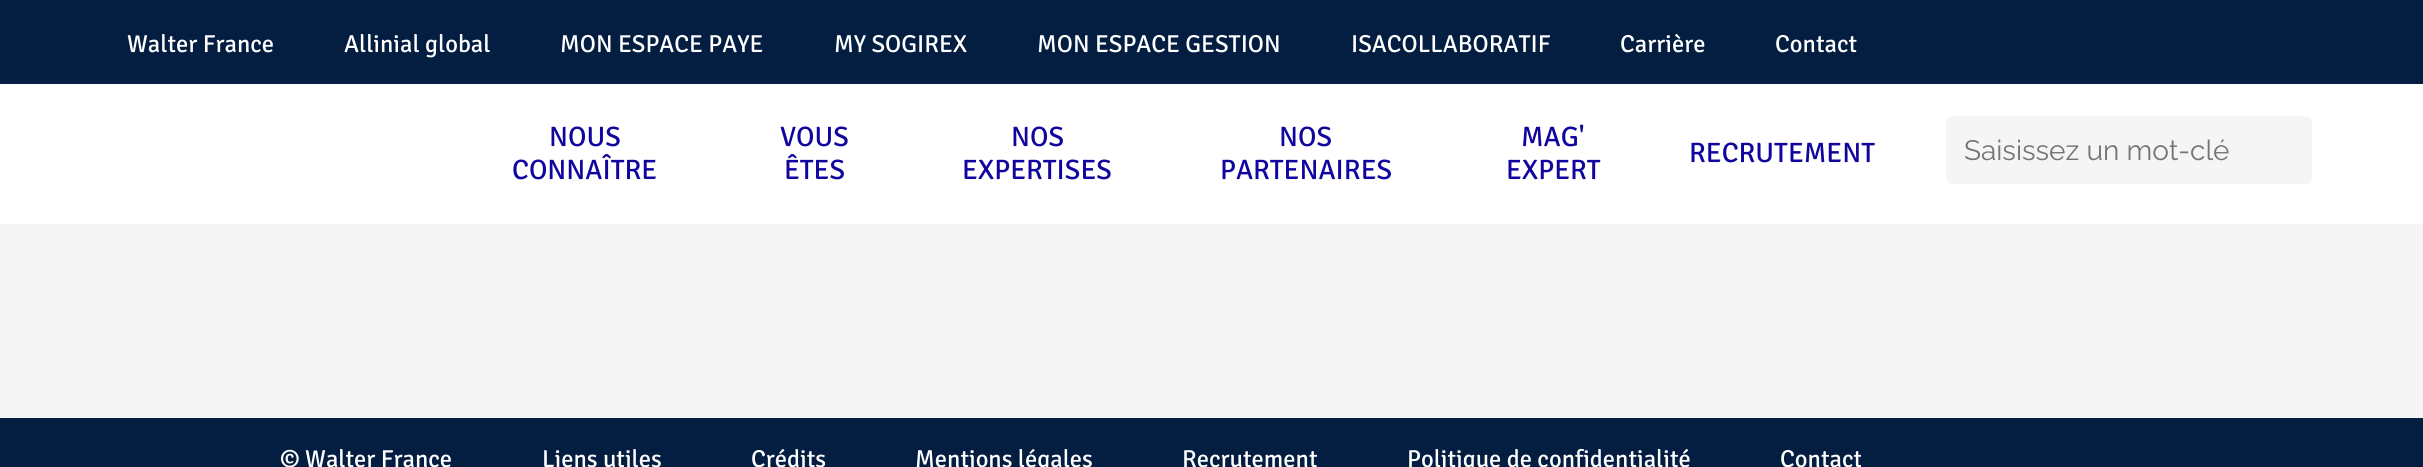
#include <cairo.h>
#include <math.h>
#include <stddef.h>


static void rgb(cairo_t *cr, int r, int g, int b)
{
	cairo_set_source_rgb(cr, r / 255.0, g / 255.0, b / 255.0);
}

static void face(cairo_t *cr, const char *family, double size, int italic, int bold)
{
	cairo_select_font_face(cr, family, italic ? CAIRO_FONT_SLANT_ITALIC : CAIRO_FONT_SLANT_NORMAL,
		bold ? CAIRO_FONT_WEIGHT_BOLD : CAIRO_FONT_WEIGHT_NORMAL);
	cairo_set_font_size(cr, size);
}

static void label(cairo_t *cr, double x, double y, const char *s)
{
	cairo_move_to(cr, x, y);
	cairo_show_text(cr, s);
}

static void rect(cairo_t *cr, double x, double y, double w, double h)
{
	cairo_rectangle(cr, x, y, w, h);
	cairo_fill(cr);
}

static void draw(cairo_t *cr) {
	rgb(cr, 245, 245, 245);
	cairo_paint(cr);
	rgb(cr, 255, 255, 255);
	rect(cr, 0, 84, 2423, 140);
	rgb(cr, 4, 30, 66);
	rect(cr, 0, 0, 2423, 84);
	face(cr, "Signika", 24.5, 0, 0);
	rgb(cr, 255, 255, 255);
	label(cr, 127, 52, "Walter France");
	label(cr, 344, 52, "Allinial global");
	label(cr, 560, 52, "MON ESPACE PAYE");
	label(cr, 834, 52, "MY SOGIREX");
	label(cr, 1037, 52, "MON ESPACE GESTION");
	label(cr, 1351, 52, "ISACOLLABORATIF");
	label(cr, 1620, 52, "Carrière");
	label(cr, 1775, 52, "Contact");
	face(cr, "Signika", 28, 0, 0);
	rgb(cr, 16, 6, 159);
	label(cr, 549, 146, "NOUS");
	label(cr, 512, 179, "CONNAÎTRE");
	label(cr, 780, 146, "VOUS");
	label(cr, 784, 179, "ÊTES");
	label(cr, 1011, 146, "NOS");
	label(cr, 962, 179, "EXPERTISES");
	label(cr, 1279, 146, "NOS");
	label(cr, 1220, 179, "PARTENAIRES");
	label(cr, 1521, 146, "MAG'");
	label(cr, 1506, 179, "EXPERT");
	label(cr, 1689, 162, "RECRUTEMENT");
	rgb(cr, 245, 245, 245);
	cairo_new_path(cr);
	cairo_move_to(cr, 1953, 116);
	cairo_line_to(cr, 2256, 116);
	cairo_line_to(cr, 2256, 184);
	cairo_line_to(cr, 1953, 184);
	cairo_curve_to(cr, 1949, 184, 1946, 181, 1946, 177);
	cairo_line_to(cr, 1946, 123);
	cairo_curve_to(cr, 1946, 119, 1949, 116, 1953, 116);
	cairo_close_path(cr);
	cairo_fill(cr);
	face(cr, "Raleway", 28, 0, 0);
	rgb(cr, 117, 117, 117);
	label(cr, 1964, 160, "Saisissez un mot-clé");
	rgb(cr, 245, 245, 245);
	cairo_new_path(cr);
	cairo_move_to(cr, 2256, 116);
	cairo_line_to(cr, 2305, 116);
	cairo_curve_to(cr, 2309, 116, 2312, 119, 2312, 123);
	cairo_line_to(cr, 2312, 177);
	cairo_curve_to(cr, 2312, 181, 2309, 184, 2305, 184);
	cairo_line_to(cr, 2256, 184);
	cairo_close_path(cr);
	cairo_fill(cr);
	rgb(cr, 4, 30, 66);
	rect(cr, 0, 418, 2423, 49);
	face(cr, "Signika", 24.5, 0, 0);
	rgb(cr, 255, 255, 255);
	label(cr, 280, 467, "© Walter France");
	label(cr, 542, 467, "Liens utiles");
	label(cr, 751, 467, "Crédits");
	label(cr, 915, 467, "Mentions légales");
	label(cr, 1182, 467, "Recrutement");
	label(cr, 1407, 467, "Politique de confidentialité");
	label(cr, 1780, 467, "Contact");
}

int main(void) {
	cairo_surface_t *surface = cairo_image_surface_create(CAIRO_FORMAT_RGB24, 2423, 467);
	cairo_t *cr = cairo_create(surface);
	cairo_font_options_t *options = cairo_font_options_create();
	cairo_font_options_set_hint_metrics(options, CAIRO_HINT_METRICS_OFF);
	cairo_font_options_set_hint_style(options, CAIRO_HINT_STYLE_NONE);
	cairo_set_font_options(cr, options);
	cairo_set_miter_limit(cr, 4);
	draw(cr);
	cairo_surface_write_to_png(surface, "render.png");
	cairo_font_options_destroy(options);
	cairo_destroy(cr);
	cairo_surface_destroy(surface);
	return 0;
}
